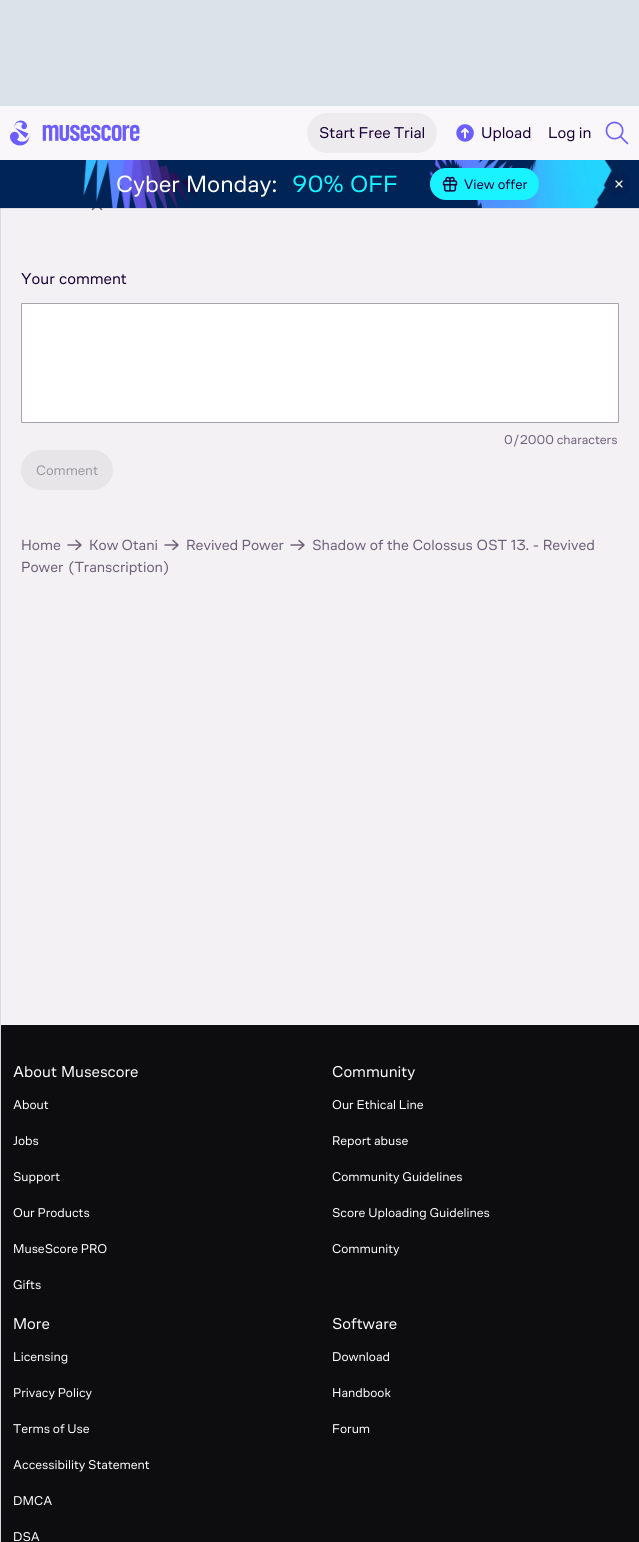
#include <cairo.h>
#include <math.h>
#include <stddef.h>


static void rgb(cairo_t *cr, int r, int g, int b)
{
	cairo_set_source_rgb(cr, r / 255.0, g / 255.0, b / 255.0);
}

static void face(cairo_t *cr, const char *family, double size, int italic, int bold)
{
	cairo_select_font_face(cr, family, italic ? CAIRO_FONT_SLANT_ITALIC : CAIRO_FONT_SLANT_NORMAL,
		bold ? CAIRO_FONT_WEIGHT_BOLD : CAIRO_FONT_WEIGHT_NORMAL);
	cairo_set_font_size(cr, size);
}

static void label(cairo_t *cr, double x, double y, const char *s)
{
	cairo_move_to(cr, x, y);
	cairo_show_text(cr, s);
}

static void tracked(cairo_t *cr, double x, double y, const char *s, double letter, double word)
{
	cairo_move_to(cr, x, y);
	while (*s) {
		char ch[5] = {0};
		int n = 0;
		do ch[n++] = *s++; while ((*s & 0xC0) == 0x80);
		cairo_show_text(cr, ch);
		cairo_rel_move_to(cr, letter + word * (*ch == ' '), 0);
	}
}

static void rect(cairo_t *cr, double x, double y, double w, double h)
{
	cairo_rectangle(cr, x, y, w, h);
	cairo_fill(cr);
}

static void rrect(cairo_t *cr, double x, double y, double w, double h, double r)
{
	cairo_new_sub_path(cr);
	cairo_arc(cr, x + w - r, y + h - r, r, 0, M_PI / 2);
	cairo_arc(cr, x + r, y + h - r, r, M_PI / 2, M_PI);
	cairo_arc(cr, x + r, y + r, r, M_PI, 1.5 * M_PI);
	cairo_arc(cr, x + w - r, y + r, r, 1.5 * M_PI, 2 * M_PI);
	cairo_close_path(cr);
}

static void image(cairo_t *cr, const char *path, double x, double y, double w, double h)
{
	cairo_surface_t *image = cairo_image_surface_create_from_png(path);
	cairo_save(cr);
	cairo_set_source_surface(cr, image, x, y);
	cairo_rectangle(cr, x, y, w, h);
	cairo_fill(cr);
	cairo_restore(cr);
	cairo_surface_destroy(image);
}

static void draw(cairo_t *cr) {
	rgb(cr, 243, 241, 244);
	cairo_paint(cr);
	rgb(cr, 221, 217, 225);
	rect(cr, 0, 208, 1, 1334);
	image(cr, "image6.png", 91, 208, 12, 3);
	cairo_set_source_rgba(cr, 0.094, 0, 0.212, 0.1);
	rect(cr, 0, 208, 639, 1);
	rgb(cr, 218, 227, 233);
	rect(cr, 0, 0, 639, 106);
	rgb(cr, 249, 247, 250);
	rect(cr, 0, 106, 639, 54);
	image(cr, "image0.png", 10, 120, 130, 26);
	rgb(cr, 237, 235, 238);
	rrect(cr, 307, 113, 130, 40, 20);
	cairo_fill(cr);
	face(cr, "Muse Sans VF", 16, 0, 0);
	rgb(cr, 24, 0, 54);
	label(cr, 319, 138, "Start Free Trial");
	image(cr, "image1.png", 456, 124, 18, 18);
	label(cr, 481, 138, "Upload");
	label(cr, 548, 138, "Log in");
	image(cr, "image2.png", 605, 121, 24, 24);
	rgb(cr, 0, 36, 85);
	rect(cr, 0, 160, 639, 48);
	image(cr, "image3.png", 83, 160, 529, 48);
	face(cr, "Muse Sans VF", 24, 0, 0);
	rgb(cr, 255, 255, 255);
	label(cr, 116, 192, "Cyber");
	label(cr, 186, 192, "Monday:");
	rgb(cr, 25, 243, 255);
	label(cr, 292, 192, "90%");
	label(cr, 350, 192, "OFF");
	rrect(cr, 430, 168, 109, 32, 16);
	cairo_fill(cr);
	image(cr, "image4.png", 442, 176, 16, 16);
	face(cr, "Muse Sans VF", 14, 0, 0);
	rgb(cr, 24, 0, 54);
	label(cr, 464, 189, "View offer");
	rgb(cr, 2, 32, 82);
	cairo_new_path(cr);
	cairo_arc(cr, 619, 184, 12, 0, 2 * M_PI);
	cairo_fill(cr);
	image(cr, "image5.png", 615, 180, 8, 8);
	face(cr, "Muse Sans VF", 16, 0, 0);
	rgb(cr, 24, 0, 54);
	label(cr, 21, 284, "Your");
	label(cr, 59, 284, "comment");
	rgb(cr, 255, 255, 255);
	rrect(cr, 21.5, 303.5, 597, 119, 0.5);
	cairo_fill_preserve(cr);
	rgb(cr, 167, 164, 169);
	cairo_set_line_width(cr, 1);
	cairo_stroke(cr);
	face(cr, "Muse Sans VF", 13, 0, 0);
	rgb(cr, 110, 95, 121);
	label(cr, 504, 444, "0/2000 characters");
	rgb(cr, 231, 229, 232);
	rrect(cr, 21, 450, 92, 40, 20);
	cairo_fill(cr);
	face(cr, "Muse Sans VF", 14, 0, 0);
	rgb(cr, 155, 152, 157);
	label(cr, 36, 475, "Comment");
	face(cr, "Muse Sans VF", 15, 0, 0);
	rgb(cr, 110, 95, 121);
	label(cr, 21, 550, "Home");
	image(cr, "image7.png", 67, 539, 15, 12);
	label(cr, 89, 550, "Kow Otani");
	image(cr, "image7.png", 164, 539, 15, 12);
	label(cr, 186, 550, "Revived Power");
	image(cr, "image7.png", 290, 539, 15, 12);
	tracked(cr, 312, 550, "Shadow of the Colossus OST 13. - Revived", 0, 0.5);
	tracked(cr, 21, 572, "Power (Transcription)", 0, 2);
	rgb(cr, 13, 13, 16);
	rect(cr, 1, 1025, 638, 517);
	face(cr, "Muse Sans VF", 16, 0, 0);
	rgb(cr, 255, 255, 255);
	label(cr, 13, 1077, "About");
	label(cr, 61, 1077, "Musescore");
	face(cr, "Muse Sans VF", 13, 0, 0);
	label(cr, 13, 1109, "About");
	label(cr, 13, 1145, "Jobs");
	label(cr, 13, 1181, "Support");
	label(cr, 13, 1217, "Our Products");
	label(cr, 13, 1253, "MuseScore PRO");
	label(cr, 13, 1289, "Gifts");
	face(cr, "Muse Sans VF", 16, 0, 0);
	label(cr, 332, 1077, "Community");
	face(cr, "Muse Sans VF", 13, 0, 0);
	label(cr, 332, 1109, "Our Ethical Line");
	label(cr, 332, 1145, "Report abuse");
	label(cr, 332, 1181, "Community Guidelines");
	label(cr, 332, 1217, "Score Uploading Guidelines");
	label(cr, 332, 1253, "Community");
	face(cr, "Muse Sans VF", 16, 0, 0);
	label(cr, 13, 1329, "More");
	face(cr, "Muse Sans VF", 13, 0, 0);
	label(cr, 13, 1361, "Licensing");
	label(cr, 13, 1397, "Privacy Policy");
	label(cr, 13, 1433, "Terms of Use");
	label(cr, 13, 1469, "Accessibility Statement");
	label(cr, 13, 1505, "DMCA");
	label(cr, 13, 1541, "DSA");
	face(cr, "Muse Sans VF", 16, 0, 0);
	label(cr, 332, 1329, "Software");
	face(cr, "Muse Sans VF", 13, 0, 0);
	label(cr, 332, 1361, "Download");
	label(cr, 332, 1397, "Handbook");
	label(cr, 332, 1433, "Forum");
}

int main(void) {
	cairo_surface_t *surface = cairo_image_surface_create(CAIRO_FORMAT_RGB24, 639, 1542);
	cairo_t *cr = cairo_create(surface);
	cairo_font_options_t *options = cairo_font_options_create();
	cairo_font_options_set_hint_metrics(options, CAIRO_HINT_METRICS_OFF);
	cairo_font_options_set_hint_style(options, CAIRO_HINT_STYLE_NONE);
	cairo_set_font_options(cr, options);
	cairo_set_miter_limit(cr, 4);
	draw(cr);
	cairo_surface_write_to_png(surface, "render.png");
	cairo_font_options_destroy(options);
	cairo_destroy(cr);
	cairo_surface_destroy(surface);
	return 0;
}
